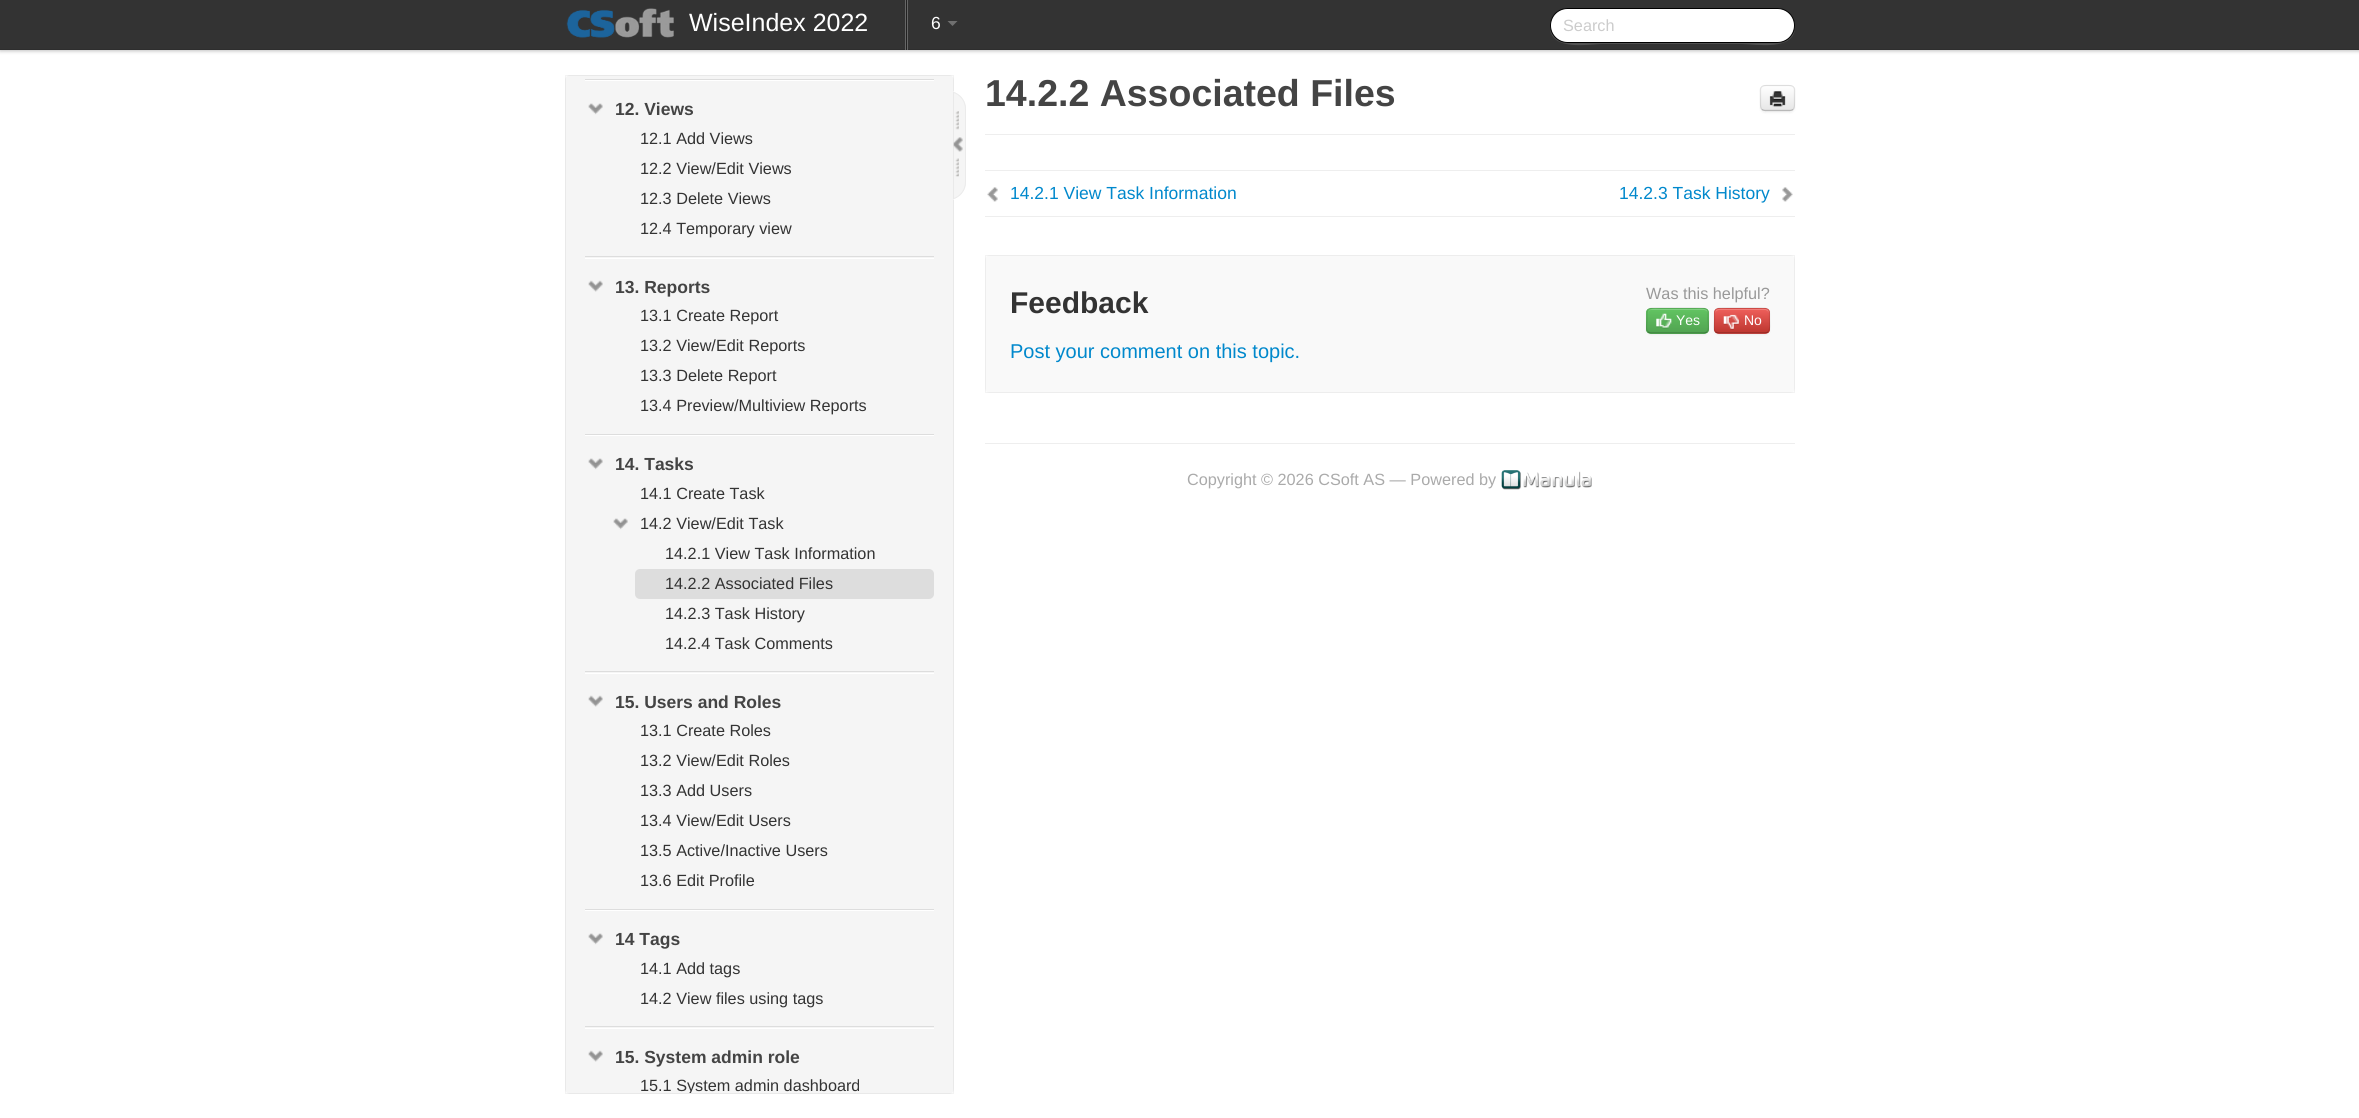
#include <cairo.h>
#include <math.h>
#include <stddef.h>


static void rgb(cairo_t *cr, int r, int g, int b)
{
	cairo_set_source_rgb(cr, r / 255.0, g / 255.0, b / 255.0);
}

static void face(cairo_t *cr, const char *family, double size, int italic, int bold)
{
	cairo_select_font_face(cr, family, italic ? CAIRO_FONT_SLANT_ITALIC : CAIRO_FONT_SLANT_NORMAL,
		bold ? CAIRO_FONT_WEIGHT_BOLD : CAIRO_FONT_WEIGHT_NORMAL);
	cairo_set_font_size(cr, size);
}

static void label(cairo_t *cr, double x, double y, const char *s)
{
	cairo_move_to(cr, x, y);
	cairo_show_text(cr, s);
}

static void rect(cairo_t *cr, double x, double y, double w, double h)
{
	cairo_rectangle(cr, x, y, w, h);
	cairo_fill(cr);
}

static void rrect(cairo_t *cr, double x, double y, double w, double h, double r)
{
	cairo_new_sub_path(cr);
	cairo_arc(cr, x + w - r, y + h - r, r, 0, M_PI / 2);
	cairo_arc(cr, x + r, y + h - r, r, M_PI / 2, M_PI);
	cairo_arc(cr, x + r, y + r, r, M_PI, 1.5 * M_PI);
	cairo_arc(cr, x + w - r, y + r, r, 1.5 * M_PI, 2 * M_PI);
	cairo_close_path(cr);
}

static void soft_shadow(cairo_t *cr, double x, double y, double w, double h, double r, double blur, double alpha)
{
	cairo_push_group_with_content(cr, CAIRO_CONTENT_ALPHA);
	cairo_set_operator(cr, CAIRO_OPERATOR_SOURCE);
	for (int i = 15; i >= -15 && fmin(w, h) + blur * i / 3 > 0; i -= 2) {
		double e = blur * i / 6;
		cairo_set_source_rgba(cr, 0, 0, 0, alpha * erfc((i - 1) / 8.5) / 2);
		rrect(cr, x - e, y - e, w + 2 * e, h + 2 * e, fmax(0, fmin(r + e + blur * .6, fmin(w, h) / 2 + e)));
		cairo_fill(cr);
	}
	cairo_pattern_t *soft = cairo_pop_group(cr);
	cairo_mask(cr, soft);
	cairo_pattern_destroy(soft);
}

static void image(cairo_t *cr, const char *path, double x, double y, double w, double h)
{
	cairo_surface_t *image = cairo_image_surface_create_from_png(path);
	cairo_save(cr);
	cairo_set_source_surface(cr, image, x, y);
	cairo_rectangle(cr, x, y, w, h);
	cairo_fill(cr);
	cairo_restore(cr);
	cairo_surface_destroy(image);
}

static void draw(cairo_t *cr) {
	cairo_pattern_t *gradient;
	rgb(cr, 255, 255, 255);
	cairo_paint(cr);
	rgb(cr, 0, 0, 0);
	soft_shadow(cr, 0, 1, 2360, 50, 0, 2, 0.25);
	rgb(cr, 51, 51, 51);
	rect(cr, 0, 0, 2359, 49);
	rgb(cr, 46, 46, 46);
	rect(cr, 0, 49, 2359, 1);
	image(cr, "image0.png", 566, 8, 108, 30);
	face(cr, "Liberation Sans", 25, 0, 0);
	rgb(cr, 255, 255, 255);
	label(cr, 689, 31, "WiseIndex 2022");
	rgb(cr, 102, 102, 102);
	rect(cr, 905, 0, 3, 50);
	rgb(cr, 34, 34, 34);
	rect(cr, 906, 0, 1, 50);
	face(cr, "Liberation Sans", 17.5, 0, 0);
	rgb(cr, 255, 255, 255);
	label(cr, 931, 29, "6");
	rgb(cr, 112, 112, 112);
	cairo_new_path(cr);
	cairo_move_to(cr, 947.5, 21);
	cairo_line_to(cr, 957.5, 21);
	cairo_line_to(cr, 952.5, 26);
	cairo_close_path(cr);
	cairo_fill(cr);
	rgb(cr, 82, 82, 82);
	cairo_new_path(cr);
	cairo_move_to(cr, 1550, 26);
	cairo_curve_to(cr, 1549, 52, 1590, 44, 1602, 44);
	cairo_line_to(cr, 1742, 44);
	cairo_curve_to(cr, 1755, 44, 1796, 52, 1795, 26);
	cairo_curve_to(cr, 1795, 35, 1787, 42, 1778, 42);
	cairo_line_to(cr, 1568, 42);
	cairo_curve_to(cr, 1558, 42, 1550, 35, 1550, 26);
	cairo_close_path(cr);
	cairo_fill(cr);
	rgb(cr, 255, 255, 255);
	rrect(cr, 1550.5, 8.5, 244, 34, 17);
	cairo_fill_preserve(cr);
	rgb(cr, 0, 0, 0);
	cairo_set_line_width(cr, 1);
	cairo_stroke(cr);
	face(cr, "Liberation Sans", 16.25, 0, 0);
	rgb(cr, 204, 204, 204);
	label(cr, 1563, 31, "Search");
	rgb(cr, 245, 245, 245);
	rrect(cr, 565, 75, 389, 1019, 5);
	cairo_fill(cr);
	cairo_rectangle(cr, 565.5, 75.5, 388, 1018);
	cairo_set_source_rgba(cr, 0, 0, 0, 0.05);
	cairo_stroke(cr);
	rgb(cr, 221, 221, 221);
	rect(cr, 585, 79, 349, 1);
	rgb(cr, 255, 255, 255);
	rect(cr, 585, 80, 349, 1);
	image(cr, "image1.png", 588, 103, 15, 12);
	face(cr, "Liberation Sans", 17.5, 0, 1);
	rgb(cr, 68, 68, 68);
	label(cr, 615, 115, "12. Views");
	face(cr, "Liberation Sans", 16.25, 0, 0);
	rgb(cr, 51, 51, 51);
	label(cr, 640, 144, "12.1 Add Views");
	label(cr, 640, 174, "12.2 View/Edit Views");
	label(cr, 640, 204, "12.3 Delete Views");
	label(cr, 640, 234, "12.4 Temporary view");
	rgb(cr, 221, 221, 221);
	rect(cr, 585, 256, 349, 1);
	rgb(cr, 255, 255, 255);
	rect(cr, 585, 258, 349, 1);
	image(cr, "image2.png", 588, 280, 15, 12);
	face(cr, "Liberation Sans", 17.5, 0, 1);
	rgb(cr, 68, 68, 68);
	label(cr, 615, 293, "13. Reports");
	face(cr, "Liberation Sans", 16.25, 0, 0);
	rgb(cr, 51, 51, 51);
	label(cr, 640, 321, "13.1 Create Report");
	label(cr, 640, 351, "13.2 View/Edit Reports");
	label(cr, 640, 381, "13.3 Delete Report");
	label(cr, 640, 411, "13.4 Preview/Multiview Reports");
	rgb(cr, 221, 221, 221);
	rect(cr, 585, 434, 349, 1);
	rgb(cr, 255, 255, 255);
	rect(cr, 585, 435, 349, 1);
	image(cr, "image1.png", 588, 458, 15, 12);
	face(cr, "Liberation Sans", 17.5, 0, 1);
	rgb(cr, 68, 68, 68);
	label(cr, 615, 470, "14. Tasks");
	face(cr, "Liberation Sans", 16.25, 0, 0);
	rgb(cr, 51, 51, 51);
	label(cr, 640, 499, "14.1 Create Task");
	image(cr, "image3.png", 613, 518, 15, 12);
	label(cr, 640, 529, "14.2 View/Edit Task");
	label(cr, 665, 559, "14.2.1 View Task Information");
	rgb(cr, 221, 221, 221);
	rrect(cr, 635, 569, 299, 30, 5);
	cairo_fill(cr);
	rgb(cr, 51, 51, 51);
	label(cr, 665, 589, "14.2.2 Associated Files");
	label(cr, 665, 619, "14.2.3 Task History");
	label(cr, 665, 649, "14.2.4 Task Comments");
	rgb(cr, 221, 221, 221);
	rect(cr, 585, 671, 349, 1);
	rgb(cr, 255, 255, 255);
	rect(cr, 585, 673, 349, 1);
	image(cr, "image2.png", 588, 695, 15, 12);
	face(cr, "Liberation Sans", 17.5, 0, 1);
	rgb(cr, 68, 68, 68);
	label(cr, 615, 708, "15. Users and Roles");
	face(cr, "Liberation Sans", 16.25, 0, 0);
	rgb(cr, 51, 51, 51);
	label(cr, 640, 736, "13.1 Create Roles");
	label(cr, 640, 766, "13.2 View/Edit Roles");
	label(cr, 640, 796, "13.3 Add Users");
	label(cr, 640, 826, "13.4 View/Edit Users");
	label(cr, 640, 856, "13.5 Active/Inactive Users");
	label(cr, 640, 886, "13.6 Edit Profile");
	rgb(cr, 221, 221, 221);
	rect(cr, 585, 909, 349, 1);
	rgb(cr, 255, 255, 255);
	rect(cr, 585, 910, 349, 1);
	image(cr, "image1.png", 588, 933, 15, 12);
	face(cr, "Liberation Sans", 17.5, 0, 1);
	rgb(cr, 68, 68, 68);
	label(cr, 615, 945, "14 Tags");
	face(cr, "Liberation Sans", 16.25, 0, 0);
	rgb(cr, 51, 51, 51);
	label(cr, 640, 974, "14.1 Add tags");
	label(cr, 640, 1004, "14.2 View files using tags");
	rgb(cr, 221, 221, 221);
	rect(cr, 585, 1026, 349, 1);
	rgb(cr, 255, 255, 255);
	rect(cr, 585, 1028, 349, 1);
	image(cr, "image2.png", 588, 1050, 15, 12);
	face(cr, "Liberation Sans", 17.5, 0, 1);
	rgb(cr, 68, 68, 68);
	label(cr, 615, 1063, "15. System admin role");
	cairo_save(cr);
	rrect(cr, 566, 76, 387, 1017, 4);
	cairo_clip(cr);
	face(cr, "Liberation Sans", 16.25, 0, 0);
	rgb(cr, 51, 51, 51);
	label(cr, 640, 1091, "15.1 System admin dashboard");
	cairo_restore(cr);
	rgb(cr, 245, 245, 245);
	cairo_new_path(cr);
	cairo_move_to(cr, 954, 91);
	cairo_line_to(cr, 948, 91);
	cairo_curve_to(cr, 958, 91, 966, 99, 966, 109);
	cairo_line_to(cr, 966, 182);
	cairo_curve_to(cr, 966, 192, 958, 200, 948, 200);
	cairo_line_to(cr, 954, 200);
	cairo_close_path(cr);
	cairo_fill(cr);
	cairo_save(cr);
	cairo_rectangle(cr, 954, 79, 25, 137);
	cairo_clip(cr);
	rrect(cr, 930.5, 91.5, 35, 108, 17.5);
	rgb(cr, 235, 235, 235);
	cairo_stroke(cr);
	cairo_restore(cr);
	image(cr, "image4.png", 955, 111, 4, 19);
	image(cr, "image5.png", 953, 137, 10, 15);
	image(cr, "image6.png", 955, 158, 4, 19);
	rgb(cr, 238, 238, 238);
	rect(cr, 985, 134, 810, 1);
	face(cr, "Liberation Sans", 37.5, 0, 1);
	rgb(cr, 68, 68, 68);
	label(cr, 985, 106, "14.2.2 Associated Files");
	rgb(cr, 0, 0, 0);
	soft_shadow(cr, 1760, 86, 35, 27, 5, 1, 0.05);
	rgb(cr, 245, 245, 245);
	rrect(cr, 1760, 85, 35, 26, 5);
	cairo_fill(cr);
	cairo_save(cr);
	rrect(cr, 1760, 85, 35, 26, 5);
	cairo_clip(cr);
	gradient = cairo_pattern_create_linear(1778, 86, 1778, 110);
	cairo_pattern_add_color_stop_rgba(gradient, 0, 1, 1, 1, 1);
	cairo_pattern_add_color_stop_rgba(gradient, 1, 0.902, 0.902, 0.902, 1);
	cairo_set_source(cr, gradient);
	cairo_pattern_destroy(gradient);
	rect(cr, 1760, 86, 35, 24);
	cairo_restore(cr);
	cairo_new_path(cr);
	cairo_move_to(cr, 1793, 109.5);
	cairo_curve_to(cr, 1792.5, 110, 1791, 110.5, 1790, 110.5);
	cairo_line_to(cr, 1765, 110.5);
	cairo_curve_to(cr, 1764, 110.5, 1762.5, 110, 1762, 109.5);
	cairo_set_source_rgba(cr, 0, 0, 0, 0.25);
	cairo_set_line_width(cr, 1.2);
	cairo_stroke(cr);
	cairo_new_path(cr);
	cairo_move_to(cr, 1762, 109.5);
	cairo_curve_to(cr, 1760.5, 108, 1760.5, 105.5, 1760.5, 103.5);
	cairo_line_to(cr, 1760.5, 89);
	cairo_curve_to(cr, 1761.5, 85, 1766, 85.5, 1769, 85.5);
	cairo_line_to(cr, 1786, 85.5);
	cairo_curve_to(cr, 1789, 85.5, 1793.5, 85, 1794.5, 89);
	cairo_line_to(cr, 1794.5, 103.5);
	cairo_curve_to(cr, 1794.5, 105.5, 1794.5, 108, 1793, 109.5);
	cairo_set_source_rgba(cr, 0, 0, 0, 0.1);
	cairo_stroke(cr);
	image(cr, "image7.png", 1769, 91, 17, 16);
	rgb(cr, 238, 238, 238);
	rect(cr, 985, 170, 810, 1);
	rect(cr, 985, 216, 810, 1);
	image(cr, "image8.png", 987, 187, 11, 15);
	face(cr, "Liberation Sans", 17.5, 0, 0);
	rgb(cr, 0, 136, 204);
	label(cr, 1010, 199, "14.2.1 View Task Information");
	label(cr, 1619, 199, "14.2.3 Task History");
	image(cr, "image9.png", 1782, 187, 11, 15);
	rgb(cr, 249, 249, 249);
	rrect(cr, 985, 255, 810, 138, 5);
	cairo_fill(cr);
	cairo_rectangle(cr, 985.5, 255.5, 809, 137);
	cairo_set_source_rgba(cr, 0, 0, 0, 0.05);
	cairo_set_line_width(cr, 1);
	cairo_stroke(cr);
	face(cr, "Liberation Sans", 30, 0, 1);
	rgb(cr, 51, 51, 51);
	label(cr, 1010, 313, "Feedback");
	face(cr, "Liberation Sans", 16.25, 0, 0);
	rgb(cr, 153, 153, 153);
	label(cr, 1646, 299, "Was this helpful?");
	rgb(cr, 0, 0, 0);
	soft_shadow(cr, 1646, 309, 63, 26, 5, 1, 0.05);
	rgb(cr, 91, 183, 91);
	rrect(cr, 1646, 308, 63, 26, 5);
	cairo_fill(cr);
	cairo_save(cr);
	rrect(cr, 1646, 308, 63, 26, 5);
	cairo_clip(cr);
	gradient = cairo_pattern_create_linear(1678, 309, 1678, 333);
	cairo_pattern_add_color_stop_rgba(gradient, 0, 0.384, 0.769, 0.384, 1);
	cairo_pattern_add_color_stop_rgba(gradient, 1, 0.318, 0.639, 0.318, 1);
	cairo_set_source(cr, gradient);
	cairo_pattern_destroy(gradient);
	rect(cr, 1646, 309, 63, 24);
	cairo_restore(cr);
	rgb(cr, 129, 207, 129);
	cairo_new_path(cr);
	cairo_move_to(cr, 1651, 310);
	cairo_line_to(cr, 1704, 310);
	cairo_curve_to(cr, 1706, 310, 1708, 312, 1708, 314);
	cairo_curve_to(cr, 1708, 307, 1700, 309, 1695, 309);
	cairo_line_to(cr, 1661, 309);
	cairo_curve_to(cr, 1656, 309, 1648, 307, 1648, 314);
	cairo_curve_to(cr, 1648, 312, 1649, 310, 1651, 310);
	cairo_close_path(cr);
	cairo_fill(cr);
	cairo_new_path(cr);
	cairo_move_to(cr, 1707, 332);
	cairo_curve_to(cr, 1706, 332.5, 1705, 333, 1704, 333);
	cairo_line_to(cr, 1651, 333);
	cairo_curve_to(cr, 1650, 333, 1649, 332.5, 1648, 332);
	cairo_set_source_rgba(cr, 0, 0, 0, 0.25);
	cairo_set_line_width(cr, 1.2);
	cairo_stroke(cr);
	cairo_new_path(cr);
	cairo_move_to(cr, 1648, 332);
	cairo_curve_to(cr, 1645.5, 329, 1647, 324, 1647, 320.5);
	cairo_curve_to(cr, 1647, 307.5, 1646, 308, 1660, 308);
	cairo_line_to(cr, 1695, 308);
	cairo_curve_to(cr, 1709, 308, 1708, 307.5, 1708, 320.5);
	cairo_curve_to(cr, 1708, 324, 1709.5, 329, 1707, 332);
	cairo_set_source_rgba(cr, 0, 0, 0, 0.1);
	cairo_stroke(cr);
	image(cr, "image10.png", 1656, 313, 16, 16);
	face(cr, "Liberation Sans", 14, 0, 0);
	rgb(cr, 255, 255, 255);
	label(cr, 1676, 325, "Yes");
	rgb(cr, 0, 0, 0);
	soft_shadow(cr, 1714, 309, 56, 26, 5, 1, 0.05);
	rgb(cr, 218, 79, 73);
	rrect(cr, 1714, 308, 56, 26, 5);
	cairo_fill(cr);
	cairo_save(cr);
	rrect(cr, 1714, 308, 56, 26, 5);
	cairo_clip(cr);
	gradient = cairo_pattern_create_linear(1742, 309, 1742, 333);
	cairo_pattern_add_color_stop_rgba(gradient, 0, 0.933, 0.373, 0.357, 1);
	cairo_pattern_add_color_stop_rgba(gradient, 1, 0.741, 0.212, 0.184, 1);
	cairo_set_source(cr, gradient);
	cairo_pattern_destroy(gradient);
	rect(cr, 1714, 309, 56, 24);
	cairo_restore(cr);
	cairo_set_source_rgba(cr, 1, 1, 1, 0.2);
	cairo_new_path(cr);
	cairo_move_to(cr, 1719, 310);
	cairo_line_to(cr, 1765, 310);
	cairo_curve_to(cr, 1767, 310, 1769, 312, 1769, 314);
	cairo_curve_to(cr, 1769, 307, 1762, 309, 1757, 309);
	cairo_line_to(cr, 1727, 309);
	cairo_curve_to(cr, 1722, 309, 1715, 307, 1715, 314);
	cairo_curve_to(cr, 1715, 312, 1717, 310, 1719, 310);
	cairo_close_path(cr);
	cairo_fill(cr);
	cairo_new_path(cr);
	cairo_move_to(cr, 1768, 332);
	cairo_curve_to(cr, 1767.5, 332.5, 1766, 333, 1765, 333);
	cairo_line_to(cr, 1719, 333);
	cairo_curve_to(cr, 1717.5, 333, 1716.5, 332.5, 1715.5, 332);
	cairo_set_source_rgba(cr, 0, 0, 0, 0.25);
	cairo_stroke(cr);
	cairo_new_path(cr);
	cairo_move_to(cr, 1715.5, 332);
	cairo_curve_to(cr, 1713, 329, 1714.5, 324, 1714.5, 320.5);
	cairo_curve_to(cr, 1714.5, 308, 1713.5, 308, 1726.5, 308);
	cairo_line_to(cr, 1757.5, 308);
	cairo_curve_to(cr, 1770.5, 308, 1769.5, 308, 1769.5, 320.5);
	cairo_curve_to(cr, 1769.5, 324, 1770.5, 329, 1768, 332);
	cairo_set_source_rgba(cr, 0, 0, 0, 0.1);
	cairo_stroke(cr);
	image(cr, "image11.png", 1723, 314, 16, 16);
	rgb(cr, 255, 255, 255);
	label(cr, 1744, 325, "No");
	face(cr, "Liberation Sans", 20, 0, 0);
	rgb(cr, 0, 136, 204);
	label(cr, 1010, 358, "Post your comment on this topic.");
	rgb(cr, 238, 238, 238);
	rect(cr, 985, 443, 810, 1);
	face(cr, "Liberation Sans", 16.25, 0, 0);
	rgb(cr, 170, 170, 170);
	label(cr, 1187, 485, "Copyright © 2026 CSoft AS — Powered by");
	image(cr, "image12.png", 1501, 470, 91, 20);
}

int main(void) {
	cairo_surface_t *surface = cairo_image_surface_create(CAIRO_FORMAT_RGB24, 2359, 1118);
	cairo_t *cr = cairo_create(surface);
	cairo_font_options_t *options = cairo_font_options_create();
	cairo_font_options_set_hint_metrics(options, CAIRO_HINT_METRICS_OFF);
	cairo_font_options_set_hint_style(options, CAIRO_HINT_STYLE_NONE);
	cairo_set_font_options(cr, options);
	cairo_set_miter_limit(cr, 4);
	draw(cr);
	cairo_surface_write_to_png(surface, "render.png");
	cairo_font_options_destroy(options);
	cairo_destroy(cr);
	cairo_surface_destroy(surface);
	return 0;
}
